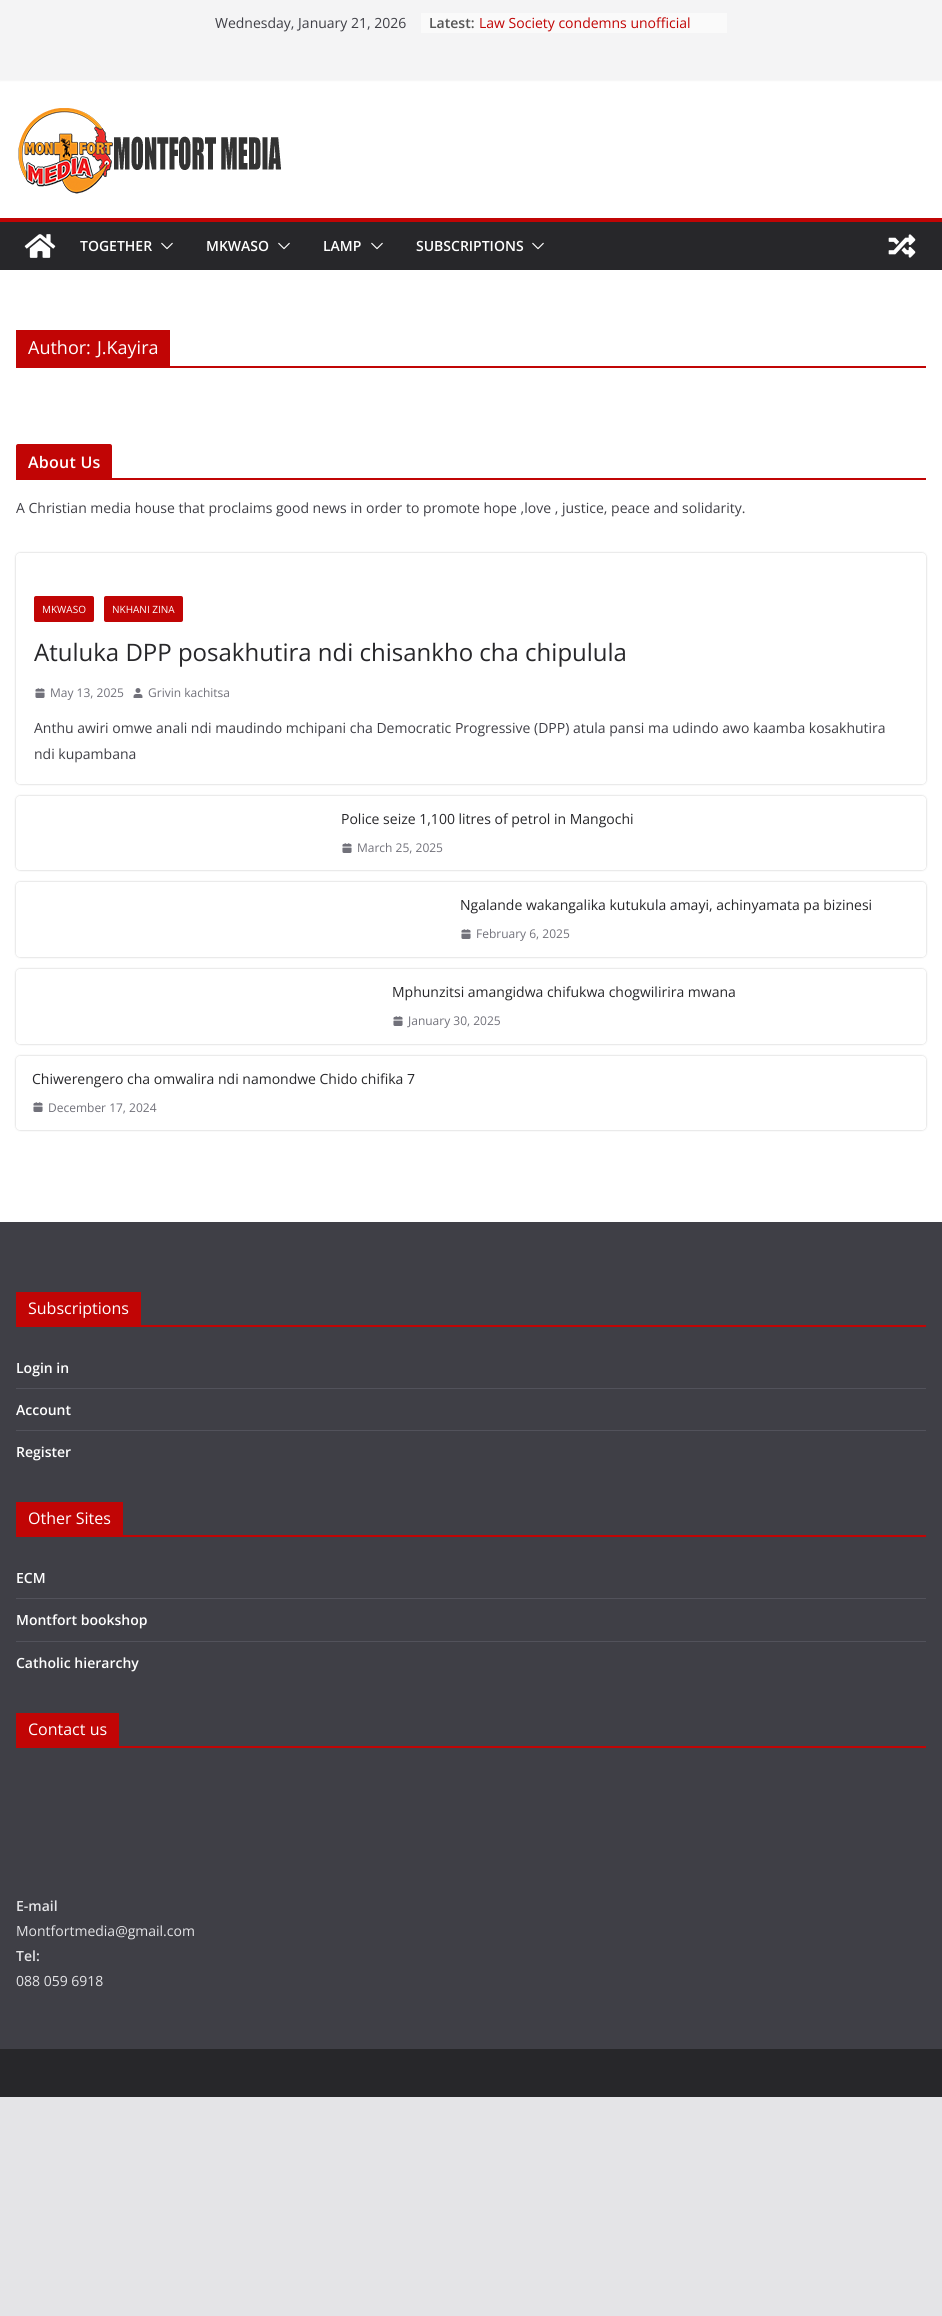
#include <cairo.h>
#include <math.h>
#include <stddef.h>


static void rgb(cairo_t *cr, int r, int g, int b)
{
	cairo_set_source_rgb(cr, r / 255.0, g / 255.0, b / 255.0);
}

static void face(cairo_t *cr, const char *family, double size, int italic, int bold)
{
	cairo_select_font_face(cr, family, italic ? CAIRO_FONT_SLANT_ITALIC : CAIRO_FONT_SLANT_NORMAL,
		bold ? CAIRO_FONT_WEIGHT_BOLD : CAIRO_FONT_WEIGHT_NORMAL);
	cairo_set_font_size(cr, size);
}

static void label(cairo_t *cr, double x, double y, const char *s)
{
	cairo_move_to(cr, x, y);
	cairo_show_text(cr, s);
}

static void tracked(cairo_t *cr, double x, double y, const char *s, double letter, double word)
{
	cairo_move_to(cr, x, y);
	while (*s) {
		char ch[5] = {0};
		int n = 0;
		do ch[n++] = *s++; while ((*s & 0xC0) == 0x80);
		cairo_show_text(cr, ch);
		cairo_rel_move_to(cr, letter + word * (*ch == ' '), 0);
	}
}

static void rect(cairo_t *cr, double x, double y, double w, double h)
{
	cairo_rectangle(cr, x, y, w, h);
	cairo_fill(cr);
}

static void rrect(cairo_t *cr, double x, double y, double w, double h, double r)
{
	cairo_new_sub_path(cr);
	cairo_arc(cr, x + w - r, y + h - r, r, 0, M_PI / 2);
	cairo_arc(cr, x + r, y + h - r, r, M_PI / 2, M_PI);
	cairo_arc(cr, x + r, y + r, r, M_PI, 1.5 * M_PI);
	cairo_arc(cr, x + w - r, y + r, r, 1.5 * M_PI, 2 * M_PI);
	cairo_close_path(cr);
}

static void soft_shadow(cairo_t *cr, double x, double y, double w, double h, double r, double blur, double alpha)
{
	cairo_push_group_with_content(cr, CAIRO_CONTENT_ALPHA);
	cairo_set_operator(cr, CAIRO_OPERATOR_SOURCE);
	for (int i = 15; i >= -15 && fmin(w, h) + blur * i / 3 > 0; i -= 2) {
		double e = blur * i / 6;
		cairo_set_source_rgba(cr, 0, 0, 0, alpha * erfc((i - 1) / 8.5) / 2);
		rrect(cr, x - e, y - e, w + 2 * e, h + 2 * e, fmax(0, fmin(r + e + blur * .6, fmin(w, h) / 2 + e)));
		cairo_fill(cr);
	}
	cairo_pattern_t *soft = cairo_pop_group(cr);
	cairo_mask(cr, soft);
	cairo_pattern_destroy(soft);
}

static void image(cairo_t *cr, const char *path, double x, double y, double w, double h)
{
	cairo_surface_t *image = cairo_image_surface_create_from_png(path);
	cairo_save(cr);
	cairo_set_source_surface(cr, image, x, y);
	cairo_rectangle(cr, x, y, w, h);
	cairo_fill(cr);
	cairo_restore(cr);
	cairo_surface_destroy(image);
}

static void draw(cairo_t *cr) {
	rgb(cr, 228, 228, 231);
	cairo_paint(cr);
	rgb(cr, 255, 255, 255);
	rect(cr, 0, 80, 942, 138);
	rgb(cr, 0, 0, 0);
	soft_shadow(cr, 0, 0, 942, 80, 0, 1, 0.1);
	rgb(cr, 244, 244, 245);
	rect(cr, 0, 0, 942, 80);
	face(cr, "Open Sans", 14, 0, 0);
	rgb(cr, 63, 63, 70);
	label(cr, 215, 28, "Wednesday, January 21, 2026");
	rgb(cr, 250, 250, 250);
	rect(cr, 421, 13, 306, 20);
	face(cr, "Open Sans SemiBold", 14, 0, 0);
	rgb(cr, 85, 85, 85);
	label(cr, 429, 28, "Latest:");
	face(cr, "Open Sans", 14, 0, 0);
	rgb(cr, 193, 5, 5);
	label(cr, 479, 28, "Law Society condemns unofficial");
	image(cr, "image0.png", 18, 108, 263, 86);
	rgb(cr, 39, 39, 42);
	rect(cr, 0, 222, 942, 48);
	rgb(cr, 193, 5, 5);
	rect(cr, 0, 218, 942, 4);
	image(cr, "image1.png", 24, 234, 32, 24);
	face(cr, "Open Sans SemiBold", 14, 0, 0);
	rgb(cr, 255, 255, 255);
	label(cr, 80, 251, "TOGETHER");
	image(cr, "image2.png", 161, 242, 12, 8);
	label(cr, 206, 251, "MKWASO");
	image(cr, "image2.png", 278, 242, 12, 8);
	label(cr, 323, 251, "LAMP");
	image(cr, "image2.png", 371, 242, 12, 8);
	label(cr, 416, 251, "SUBSCRIPTIONS");
	image(cr, "image2.png", 532, 242, 12, 8);
	image(cr, "image3.png", 888, 234, 28, 24);
	rect(cr, 0, 270, 942, 952);
	rgb(cr, 193, 5, 5);
	rect(cr, 16, 366, 910, 2);
	rect(cr, 16, 330, 154, 36);
	face(cr, "Open Sans", 18, 0, 0);
	rgb(cr, 255, 255, 255);
	label(cr, 28, 354, "Author:");
	label(cr, 97, 354, "J.Kayira");
	rgb(cr, 193, 5, 5);
	rect(cr, 16, 478, 910, 2);
	cairo_new_path(cr);
	cairo_move_to(cr, 18, 444);
	cairo_line_to(cr, 110, 444);
	cairo_curve_to(cr, 111, 444, 112, 445, 112, 446);
	cairo_line_to(cr, 112, 478);
	cairo_line_to(cr, 16, 478);
	cairo_line_to(cr, 16, 446);
	cairo_curve_to(cr, 16, 445, 17, 444, 18, 444);
	cairo_close_path(cr);
	cairo_fill(cr);
	face(cr, "Open Sans SemiBold", 16, 0, 0);
	rgb(cr, 255, 255, 255);
	tracked(cr, 28, 468, "About Us", 0.25, 0);
	face(cr, "Open Sans", 14, 0, 0);
	rgb(cr, 63, 63, 70);
	label(cr, 16, 513, "A Christian media house that proclaims good news in order to promote hope ,love , justice, peace and solidarity.");
	cairo_save(cr);
	cairo_set_fill_rule(cr, CAIRO_FILL_RULE_EVEN_ODD);
	cairo_new_path(cr);
	cairo_move_to(cr, 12, 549);
	cairo_line_to(cr, 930, 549);
	cairo_line_to(cr, 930, 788);
	cairo_line_to(cr, 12, 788);
	cairo_close_path(cr);
	cairo_move_to(cr, 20, 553);
	cairo_line_to(cr, 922, 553);
	cairo_curve_to(cr, 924, 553, 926, 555, 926, 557);
	cairo_line_to(cr, 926, 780);
	cairo_curve_to(cr, 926, 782, 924, 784, 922, 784);
	cairo_line_to(cr, 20, 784);
	cairo_curve_to(cr, 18, 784, 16, 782, 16, 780);
	cairo_line_to(cr, 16, 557);
	cairo_curve_to(cr, 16, 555, 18, 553, 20, 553);
	cairo_close_path(cr);
	cairo_clip(cr);
	rgb(cr, 0, 0, 0);
	soft_shadow(cr, 16, 553, 910, 231, 4, 1, 0.24);
	cairo_restore(cr);
	rgb(cr, 193, 5, 5);
	rrect(cr, 34, 596, 60, 26, 2);
	cairo_fill(cr);
	face(cr, "Open Sans", 10, 0, 0);
	rgb(cr, 255, 255, 255);
	label(cr, 42, 613, "MKWASO");
	rgb(cr, 193, 5, 5);
	rrect(cr, 104, 596, 79, 26, 2);
	cairo_fill(cr);
	rgb(cr, 255, 255, 255);
	label(cr, 112, 613, "NKHANI ZINA");
	face(cr, "Open Sans", 24, 0, 0);
	rgb(cr, 39, 39, 42);
	label(cr, 34, 661, "Atuluka DPP posakhutira ndi chisankho cha chipulula");
	image(cr, "image4.png", 35, 688, 10, 10);
	face(cr, "Open Sans", 12, 0, 0);
	rgb(cr, 113, 113, 122);
	label(cr, 50, 697, "May 13, 2025");
	image(cr, "image5.png", 133, 688, 10, 10);
	label(cr, 148, 697, "Grivin kachitsa");
	face(cr, "Open Sans", 14, 0, 0);
	rgb(cr, 63, 63, 70);
	label(cr, 34, 733, "Anthu awiri omwe anali ndi maudindo mchipani cha Democratic Progressive (DPP) atula pansi ma udindo awo kaamba kosakhutira");
	label(cr, 34, 759, "ndi kupambana");
	cairo_save(cr);
	cairo_set_fill_rule(cr, CAIRO_FILL_RULE_EVEN_ODD);
	cairo_new_path(cr);
	cairo_move_to(cr, 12, 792);
	cairo_line_to(cr, 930, 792);
	cairo_line_to(cr, 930, 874);
	cairo_line_to(cr, 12, 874);
	cairo_close_path(cr);
	cairo_move_to(cr, 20, 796);
	cairo_line_to(cr, 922, 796);
	cairo_curve_to(cr, 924, 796, 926, 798, 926, 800);
	cairo_line_to(cr, 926, 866);
	cairo_curve_to(cr, 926, 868, 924, 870, 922, 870);
	cairo_line_to(cr, 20, 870);
	cairo_curve_to(cr, 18, 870, 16, 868, 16, 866);
	cairo_line_to(cr, 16, 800);
	cairo_curve_to(cr, 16, 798, 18, 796, 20, 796);
	cairo_close_path(cr);
	cairo_clip(cr);
	rgb(cr, 0, 0, 0);
	soft_shadow(cr, 16, 796, 910, 74, 4, 1, 0.24);
	cairo_restore(cr);
	rgb(cr, 39, 39, 42);
	label(cr, 341, 824, "Police seize 1,100 litres of petrol in Mangochi");
	image(cr, "image4.png", 342, 843, 10, 10);
	face(cr, "Open Sans", 12, 0, 0);
	rgb(cr, 113, 113, 122);
	label(cr, 357, 852, "March 25, 2025");
	cairo_save(cr);
	cairo_set_fill_rule(cr, CAIRO_FILL_RULE_EVEN_ODD);
	cairo_new_path(cr);
	cairo_move_to(cr, 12, 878);
	cairo_line_to(cr, 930, 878);
	cairo_line_to(cr, 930, 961);
	cairo_line_to(cr, 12, 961);
	cairo_close_path(cr);
	cairo_move_to(cr, 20, 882);
	cairo_line_to(cr, 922, 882);
	cairo_curve_to(cr, 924, 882, 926, 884, 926, 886);
	cairo_line_to(cr, 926, 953);
	cairo_curve_to(cr, 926, 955, 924, 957, 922, 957);
	cairo_line_to(cr, 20, 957);
	cairo_curve_to(cr, 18, 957, 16, 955, 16, 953);
	cairo_line_to(cr, 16, 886);
	cairo_curve_to(cr, 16, 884, 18, 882, 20, 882);
	cairo_close_path(cr);
	cairo_clip(cr);
	rgb(cr, 0, 0, 0);
	soft_shadow(cr, 16, 882, 910, 75, 4, 1, 0.24);
	cairo_restore(cr);
	face(cr, "Open Sans", 14, 0, 0);
	rgb(cr, 39, 39, 42);
	label(cr, 460, 910, "Ngalande wakangalika kutukula amayi, achinyamata pa bizinesi");
	image(cr, "image4.png", 461, 929, 10, 10);
	face(cr, "Open Sans", 12, 0, 0);
	rgb(cr, 113, 113, 122);
	label(cr, 476, 938, "February 6, 2025");
	cairo_save(cr);
	cairo_set_fill_rule(cr, CAIRO_FILL_RULE_EVEN_ODD);
	cairo_new_path(cr);
	cairo_move_to(cr, 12, 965);
	cairo_line_to(cr, 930, 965);
	cairo_line_to(cr, 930, 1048);
	cairo_line_to(cr, 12, 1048);
	cairo_close_path(cr);
	cairo_move_to(cr, 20, 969);
	cairo_line_to(cr, 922, 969);
	cairo_curve_to(cr, 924, 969, 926, 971, 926, 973);
	cairo_line_to(cr, 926, 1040);
	cairo_curve_to(cr, 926, 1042, 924, 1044, 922, 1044);
	cairo_line_to(cr, 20, 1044);
	cairo_curve_to(cr, 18, 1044, 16, 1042, 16, 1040);
	cairo_line_to(cr, 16, 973);
	cairo_curve_to(cr, 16, 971, 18, 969, 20, 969);
	cairo_close_path(cr);
	cairo_clip(cr);
	rgb(cr, 0, 0, 0);
	soft_shadow(cr, 16, 969, 910, 75, 4, 1, 0.24);
	cairo_restore(cr);
	face(cr, "Open Sans", 14, 0, 0);
	rgb(cr, 39, 39, 42);
	label(cr, 392, 997, "Mphunzitsi amangidwa chifukwa chogwilirira mwana");
	image(cr, "image4.png", 393, 1016, 10, 10);
	face(cr, "Open Sans", 12, 0, 0);
	rgb(cr, 113, 113, 122);
	label(cr, 408, 1025, "January 30, 2025");
	cairo_save(cr);
	cairo_set_fill_rule(cr, CAIRO_FILL_RULE_EVEN_ODD);
	cairo_new_path(cr);
	cairo_move_to(cr, 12, 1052);
	cairo_line_to(cr, 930, 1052);
	cairo_line_to(cr, 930, 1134);
	cairo_line_to(cr, 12, 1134);
	cairo_close_path(cr);
	cairo_move_to(cr, 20, 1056);
	cairo_line_to(cr, 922, 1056);
	cairo_curve_to(cr, 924, 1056, 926, 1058, 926, 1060);
	cairo_line_to(cr, 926, 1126);
	cairo_curve_to(cr, 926, 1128, 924, 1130, 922, 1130);
	cairo_line_to(cr, 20, 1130);
	cairo_curve_to(cr, 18, 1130, 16, 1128, 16, 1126);
	cairo_line_to(cr, 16, 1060);
	cairo_curve_to(cr, 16, 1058, 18, 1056, 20, 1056);
	cairo_close_path(cr);
	cairo_clip(cr);
	rgb(cr, 0, 0, 0);
	soft_shadow(cr, 16, 1056, 910, 74, 4, 1, 0.24);
	cairo_restore(cr);
	face(cr, "Open Sans", 14, 0, 0);
	rgb(cr, 39, 39, 42);
	label(cr, 32, 1084, "Chiwerengero cha omwalira ndi namondwe Chido chifika 7");
	image(cr, "image4.png", 33, 1102, 10, 10);
	face(cr, "Open Sans", 12, 0, 0);
	rgb(cr, 113, 113, 122);
	label(cr, 48, 1112, "December 17, 2024");
	rgb(cr, 63, 63, 70);
	rect(cr, 0, 1222, 942, 827);
	rgb(cr, 193, 5, 5);
	rect(cr, 16, 1325, 910, 2);
	rect(cr, 16, 1292, 125, 33);
	face(cr, "Open Sans", 16, 0, 0);
	rgb(cr, 255, 255, 255);
	label(cr, 28, 1314, "Subscriptions");
	rgb(cr, 82, 82, 91);
	rect(cr, 16, 1388, 910, 1);
	face(cr, "Open Sans SemiBold", 14, 0, 0);
	rgb(cr, 255, 255, 255);
	label(cr, 16, 1373, "Login in");
	rgb(cr, 82, 82, 91);
	rect(cr, 16, 1430, 910, 1);
	rgb(cr, 255, 255, 255);
	label(cr, 16, 1415, "Account");
	label(cr, 16, 1457, "Register");
	rgb(cr, 193, 5, 5);
	rect(cr, 16, 1535, 910, 2);
	rect(cr, 16, 1502, 107, 33);
	face(cr, "Open Sans", 16, 0, 0);
	rgb(cr, 255, 255, 255);
	label(cr, 28, 1524, "Other Sites");
	rgb(cr, 82, 82, 91);
	rect(cr, 16, 1598, 910, 1);
	face(cr, "Open Sans SemiBold", 14, 0, 0);
	rgb(cr, 255, 255, 255);
	label(cr, 16, 1583, "ECM");
	rgb(cr, 82, 82, 91);
	rect(cr, 16, 1641, 910, 1);
	rgb(cr, 255, 255, 255);
	label(cr, 16, 1625, "Montfort bookshop");
	label(cr, 16, 1668, "Catholic hierarchy");
	rgb(cr, 193, 5, 5);
	rect(cr, 16, 1746, 910, 2);
	rect(cr, 16, 1713, 103, 33);
	face(cr, "Open Sans", 16, 0, 0);
	rgb(cr, 255, 255, 255);
	label(cr, 28, 1735, "Contact us");
	face(cr, "Open Sans SemiBold", 14, 0, 0);
	rgb(cr, 228, 228, 231);
	label(cr, 16, 1911, "E-mail");
	face(cr, "Open Sans", 14, 0, 0);
	label(cr, 16, 1936, "Montfortmedia@gmail.com");
	face(cr, "Open Sans SemiBold", 14, 0, 0);
	label(cr, 16, 1961, "Tel:");
	face(cr, "Open Sans", 14, 0, 0);
	label(cr, 16, 1986, "088 059 6918");
	rgb(cr, 39, 39, 42);
	rect(cr, 0, 2049, 942, 48);
}

int main(void) {
	cairo_surface_t *surface = cairo_image_surface_create(CAIRO_FORMAT_RGB24, 942, 2316);
	cairo_t *cr = cairo_create(surface);
	cairo_font_options_t *options = cairo_font_options_create();
	cairo_font_options_set_hint_metrics(options, CAIRO_HINT_METRICS_OFF);
	cairo_font_options_set_hint_style(options, CAIRO_HINT_STYLE_NONE);
	cairo_set_font_options(cr, options);
	cairo_set_miter_limit(cr, 4);
	draw(cr);
	cairo_surface_write_to_png(surface, "render.png");
	cairo_font_options_destroy(options);
	cairo_destroy(cr);
	cairo_surface_destroy(surface);
	return 0;
}
